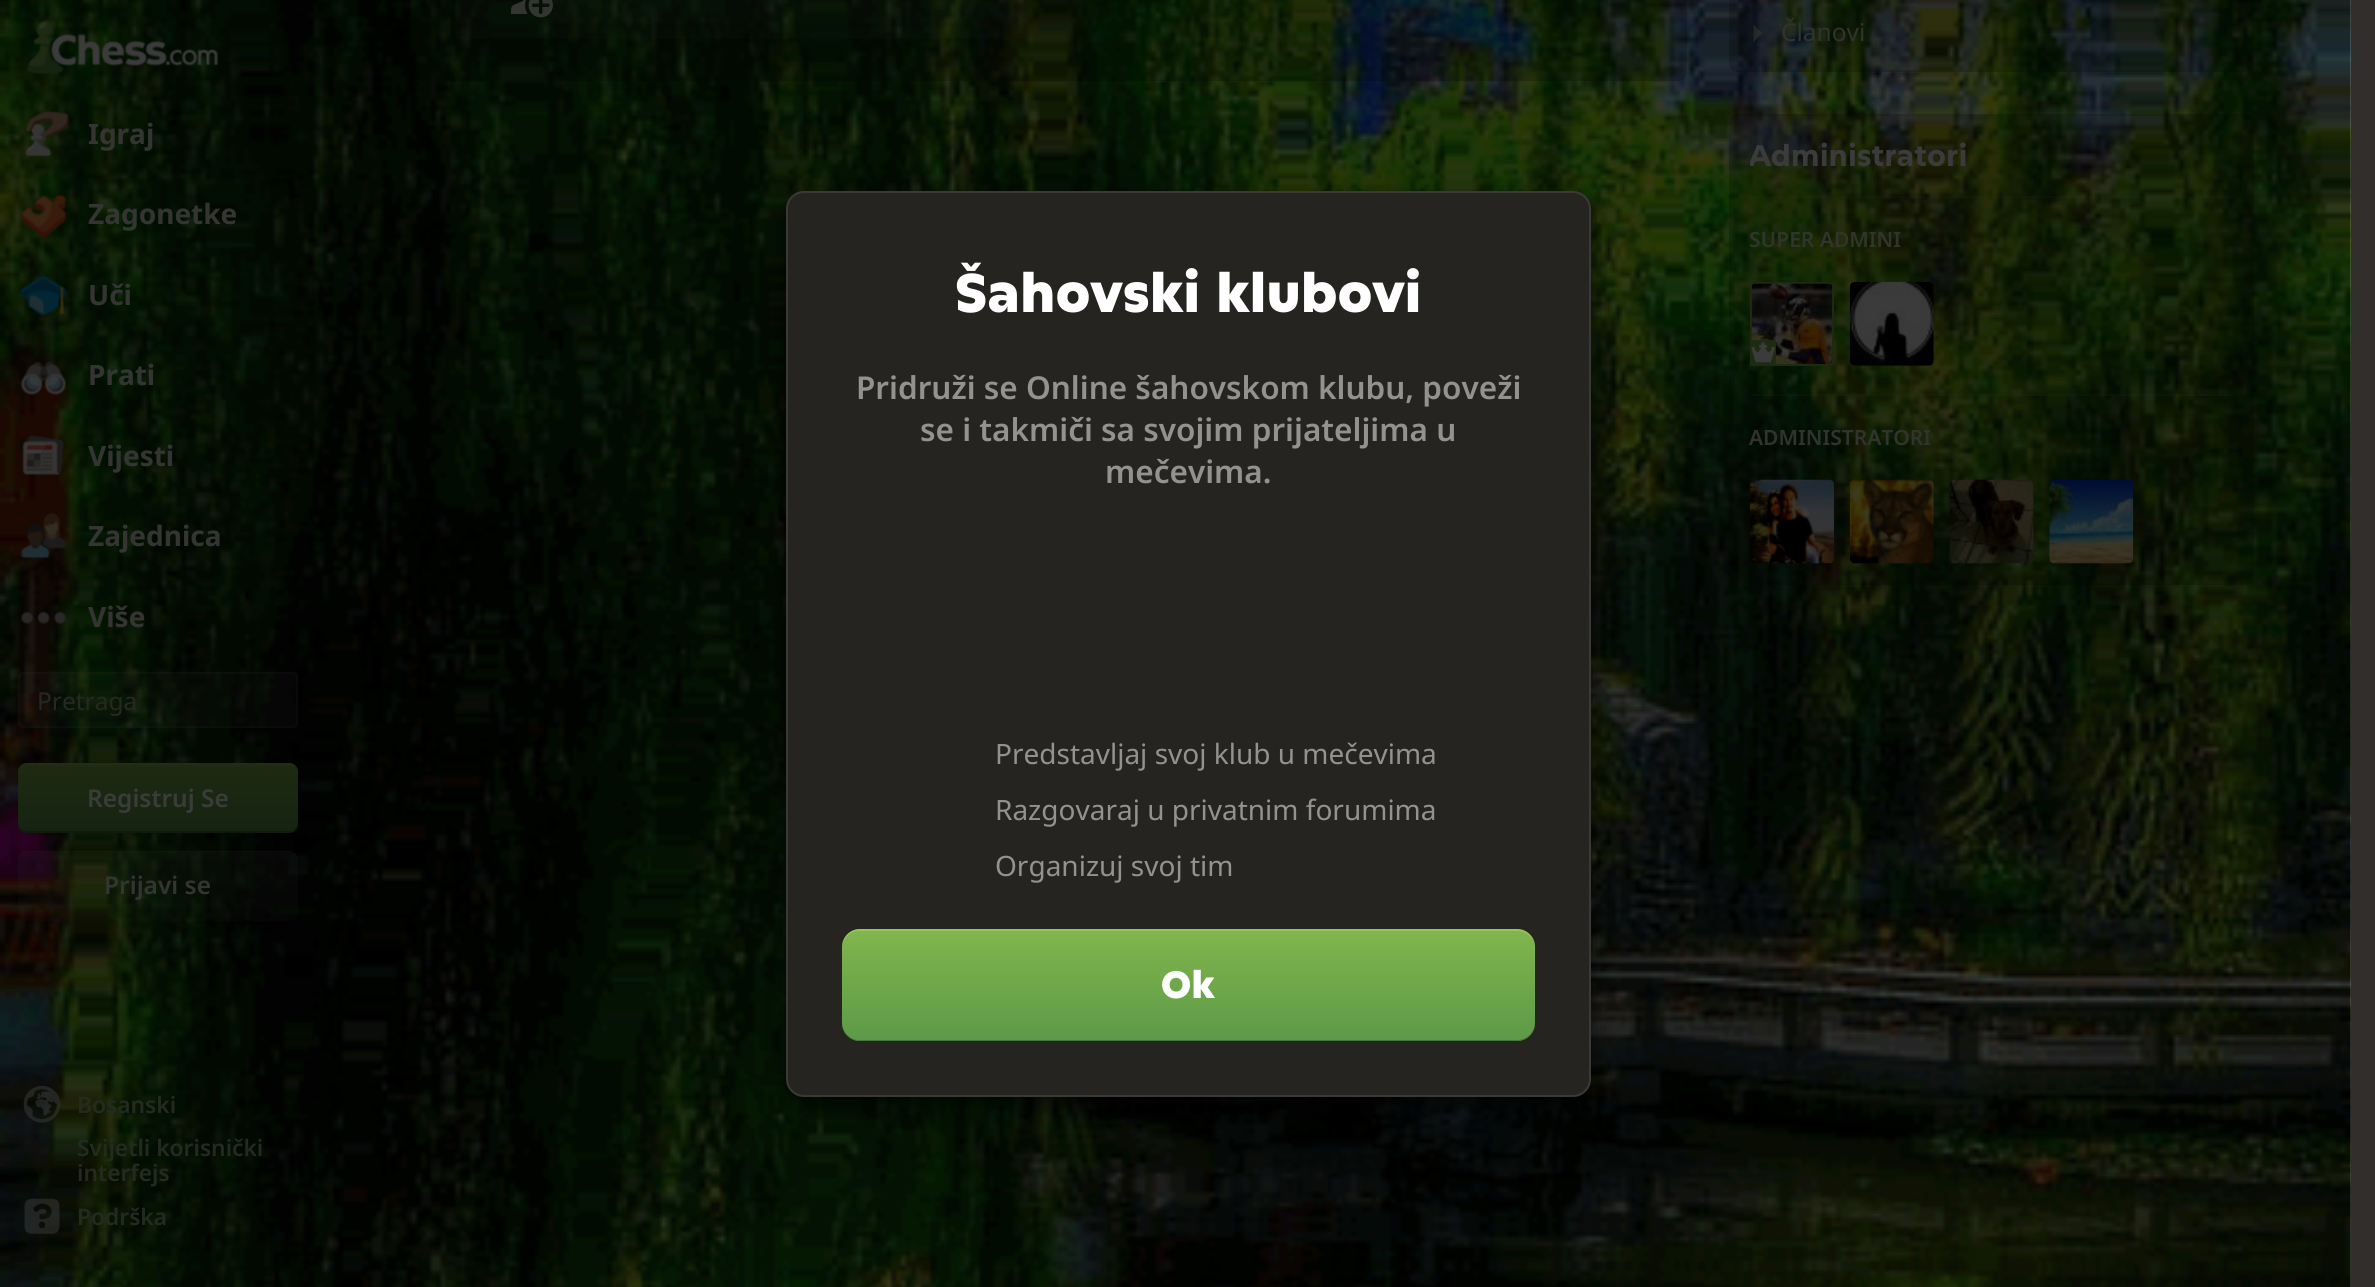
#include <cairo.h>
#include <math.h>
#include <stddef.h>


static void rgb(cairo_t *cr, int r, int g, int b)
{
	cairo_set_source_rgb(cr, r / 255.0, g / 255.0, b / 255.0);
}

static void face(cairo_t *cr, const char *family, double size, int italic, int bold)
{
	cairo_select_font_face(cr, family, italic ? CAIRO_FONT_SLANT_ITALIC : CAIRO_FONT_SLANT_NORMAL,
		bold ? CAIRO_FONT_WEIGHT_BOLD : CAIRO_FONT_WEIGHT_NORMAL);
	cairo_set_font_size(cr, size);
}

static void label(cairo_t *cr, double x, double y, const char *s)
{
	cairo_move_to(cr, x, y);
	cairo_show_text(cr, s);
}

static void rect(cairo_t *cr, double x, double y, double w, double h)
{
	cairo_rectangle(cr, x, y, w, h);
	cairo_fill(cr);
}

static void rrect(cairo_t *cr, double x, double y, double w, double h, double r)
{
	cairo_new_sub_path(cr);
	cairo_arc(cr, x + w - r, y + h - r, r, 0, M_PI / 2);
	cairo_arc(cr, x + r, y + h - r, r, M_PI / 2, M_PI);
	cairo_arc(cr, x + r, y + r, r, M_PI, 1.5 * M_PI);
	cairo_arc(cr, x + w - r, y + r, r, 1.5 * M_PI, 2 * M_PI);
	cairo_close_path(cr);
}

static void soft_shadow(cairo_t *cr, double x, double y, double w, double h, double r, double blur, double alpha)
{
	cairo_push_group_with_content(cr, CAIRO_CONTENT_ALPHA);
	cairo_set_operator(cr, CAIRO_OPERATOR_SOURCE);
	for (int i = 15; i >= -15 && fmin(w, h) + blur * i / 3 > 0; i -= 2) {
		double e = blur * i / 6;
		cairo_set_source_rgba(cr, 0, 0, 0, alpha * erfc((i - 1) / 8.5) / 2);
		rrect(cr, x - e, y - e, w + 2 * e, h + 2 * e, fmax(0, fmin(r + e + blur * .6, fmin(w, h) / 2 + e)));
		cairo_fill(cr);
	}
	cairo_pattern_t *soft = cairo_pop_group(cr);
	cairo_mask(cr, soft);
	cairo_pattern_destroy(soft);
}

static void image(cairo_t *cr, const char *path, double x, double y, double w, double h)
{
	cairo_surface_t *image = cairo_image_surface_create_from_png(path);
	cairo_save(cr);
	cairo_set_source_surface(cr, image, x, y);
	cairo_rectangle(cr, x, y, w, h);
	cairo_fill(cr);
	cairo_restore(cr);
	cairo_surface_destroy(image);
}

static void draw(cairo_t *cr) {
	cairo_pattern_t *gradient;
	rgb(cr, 49, 46, 43);
	cairo_paint(cr);
	image(cr, "image0.png", 0, 0, 2351, 1287);
	cairo_set_source_rgba(cr, 0, 0, 0, 0.2);
	rect(cr, 0, 0, 315, 1287);
	image(cr, "image1.png", 26, 20, 193, 54);
	image(cr, "image2.png", 25, 111, 44, 46);
	face(cr, "Noto Sans", 28, 0, 1);
	rgb(cr, 52, 53, 51);
	label(cr, 88, 144, "Igraj");
	image(cr, "image3.png", 20, 194, 47, 44);
	label(cr, 88, 224, "Zagonetke");
	image(cr, "image4.png", 20, 276, 47, 40);
	label(cr, 88, 305, "Uči");
	image(cr, "image5.png", 20, 361, 47, 35);
	label(cr, 88, 385, "Prati");
	image(cr, "image6.png", 22, 435, 43, 40);
	label(cr, 88, 466, "Vijesti");
	image(cr, "image7.png", 20, 513, 46, 45);
	label(cr, 88, 546, "Zajednica");
	image(cr, "image8.png", 20, 611, 47, 14);
	label(cr, 88, 627, "Više");
	cairo_set_source_rgba(cr, 0.231, 0.231, 0.231, 0.08);
	rrect(cr, 18, 672, 280, 56, 5);
	cairo_fill(cr);
	rrect(cr, 19, 673, 278, 54, 4);
	cairo_set_source_rgba(cr, 0.231, 0.231, 0.231, 0.1);
	cairo_stroke(cr);
	face(cr, "Noto Sans", 24.5, 0, 0);
	rgb(cr, 36, 42, 32);
	label(cr, 37, 710, "Pretraga");
	gradient = cairo_pattern_create_linear(158, 763, 158, 833);
	cairo_pattern_add_color_stop_rgba(gradient, 0, 0.118, 0.165, 0.067, 1);
	cairo_pattern_add_color_stop_rgba(gradient, 1, 0.082, 0.137, 0.067, 1);
	cairo_set_source(cr, gradient);
	cairo_pattern_destroy(gradient);
	rrect(cr, 18, 763, 280, 70, 9);
	cairo_fill(cr);
	rgb(cr, 16, 27, 14);
	cairo_new_path(cr);
	cairo_move_to(cr, 18, 822);
	cairo_line_to(cr, 18, 824);
	cairo_curve_to(cr, 18, 829, 22, 833, 27, 833);
	cairo_line_to(cr, 289, 833);
	cairo_curve_to(cr, 294, 833, 298, 829, 298, 824);
	cairo_line_to(cr, 298, 822);
	cairo_curve_to(cr, 298, 827, 294, 831, 289, 831);
	cairo_line_to(cr, 26, 831);
	cairo_curve_to(cr, 21, 831, 18, 827, 18, 822);
	cairo_close_path(cr);
	cairo_fill(cr);
	cairo_set_source_rgba(cr, 0.161, 0.204, 0.094, 0.4);
	cairo_new_path(cr);
	cairo_move_to(cr, 26, 765);
	cairo_line_to(cr, 289, 765);
	cairo_curve_to(cr, 294, 765, 298, 769, 298, 774);
	cairo_line_to(cr, 298, 772);
	cairo_curve_to(cr, 298, 767, 294, 763, 289, 763);
	cairo_line_to(cr, 27, 763);
	cairo_curve_to(cr, 22, 763, 18, 767, 18, 772);
	cairo_line_to(cr, 18, 774);
	cairo_curve_to(cr, 18, 769, 21, 765, 26, 765);
	cairo_close_path(cr);
	cairo_fill(cr);
	face(cr, "Noto Sans SemiBold", 24.5, 0, 0);
	rgb(cr, 59, 59, 59);
	label(cr, 87, 807, "Registruj Se");
	gradient = cairo_pattern_create_linear(158, 851, 158, 921);
	cairo_pattern_add_color_stop_rgba(gradient, 0, 0.231, 0.231, 0.231, 0.1);
	cairo_pattern_add_color_stop_rgba(gradient, 1, 0.231, 0.231, 0.231, 0.05);
	cairo_set_source(cr, gradient);
	cairo_pattern_destroy(gradient);
	rrect(cr, 18, 851, 280, 70, 9);
	cairo_fill(cr);
	cairo_set_source_rgba(cr, 0.231, 0.231, 0.231, 0.08);
	cairo_new_path(cr);
	cairo_move_to(cr, 26, 852);
	cairo_line_to(cr, 289, 852);
	cairo_curve_to(cr, 294, 852, 298, 856, 298, 861);
	cairo_curve_to(cr, 298, 856, 295, 851, 289, 851);
	cairo_line_to(cr, 25, 851);
	cairo_curve_to(cr, 20, 852, 18, 856, 18, 861);
	cairo_curve_to(cr, 18, 856, 21, 852, 26, 852);
	cairo_close_path(cr);
	cairo_fill(cr);
	rgb(cr, 52, 53, 51);
	label(cr, 104, 894, "Prijavi se");
	image(cr, "image9.png", 23, 1085, 38, 38);
	face(cr, "Noto Sans SemiBold", 22.75, 0, 0);
	rgb(cr, 36, 42, 32);
	label(cr, 77, 1113, "Bosanski");
	label(cr, 77, 1156, "Svijetli korisnički");
	label(cr, 77, 1181, "interfejs");
	image(cr, "image10.png", 24, 1198, 36, 36);
	label(cr, 77, 1225, "Podrška");
	rgb(cr, 0, 0, 0);
	soft_shadow(cr, 786, 200, 805, 906, 18, 13, 0.65);
	rgb(cr, 38, 36, 33);
	rrect(cr, 786, 191, 805, 906, 18);
	cairo_fill(cr);
	rrect(cr, 787, 192, 803, 904, 17);
	cairo_set_source_rgba(cr, 1, 1, 1, 0.1);
	cairo_stroke(cr);
	face(cr, "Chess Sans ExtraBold", 54.25, 0, 0);
	rgb(cr, 255, 255, 255);
	label(cr, 955, 312, "Šahovski klubovi");
	face(cr, "Noto Sans SemiBold", 31.5, 0, 0);
	rgb(cr, 147, 146, 144);
	label(cr, 856, 399, "Pridruži se Online šahovskom klubu, poveži");
	label(cr, 920, 441, "se i takmiči sa svojim prijateljima u");
	label(cr, 1105, 483, "mečevima.");
	face(cr, "Noto Sans", 28, 0, 0);
	label(cr, 995, 764, "Predstavljaj svoj klub u mečevima");
	label(cr, 995, 820, "Razgovaraj u privatnim forumima");
	label(cr, 995, 876, "Organizuj svoj tim");
	gradient = cairo_pattern_create_linear(1188, 929, 1188, 1041);
	cairo_pattern_add_color_stop_rgba(gradient, 0, 0.506, 0.714, 0.298, 1);
	cairo_pattern_add_color_stop_rgba(gradient, 1, 0.365, 0.6, 0.282, 1);
	cairo_set_source(cr, gradient);
	cairo_pattern_destroy(gradient);
	rrect(cr, 842, 929, 693, 112, 18);
	cairo_fill(cr);
	rgb(cr, 69, 117, 60);
	cairo_new_path(cr);
	cairo_move_to(cr, 842, 1022);
	cairo_line_to(cr, 842, 1023);
	cairo_curve_to(cr, 842, 1033, 850, 1041, 860, 1041);
	cairo_line_to(cr, 1517, 1041);
	cairo_curve_to(cr, 1527, 1041, 1535, 1033, 1535, 1023);
	cairo_line_to(cr, 1535, 1022);
	cairo_curve_to(cr, 1535, 1032, 1527, 1040, 1517, 1040);
	cairo_line_to(cr, 859, 1040);
	cairo_curve_to(cr, 850, 1040, 842, 1032, 842, 1022);
	cairo_close_path(cr);
	cairo_fill(cr);
	cairo_set_source_rgba(cr, 0.698, 0.878, 0.408, 0.4);
	cairo_new_path(cr);
	cairo_move_to(cr, 859, 931);
	cairo_line_to(cr, 1517, 931);
	cairo_curve_to(cr, 1527, 931, 1535, 939, 1535, 948);
	cairo_line_to(cr, 1535, 947);
	cairo_curve_to(cr, 1535, 937, 1527, 929, 1517, 929);
	cairo_line_to(cr, 860, 929);
	cairo_curve_to(cr, 850, 929, 842, 937, 842, 947);
	cairo_line_to(cr, 842, 948);
	cairo_curve_to(cr, 842, 939, 850, 931, 859, 931);
	cairo_close_path(cr);
	cairo_fill(cr);
	face(cr, "Chess Sans ExtraBold", 38, 0, 0);
	rgb(cr, 255, 255, 255);
	label(cr, 1161, 998, "Ok");
	cairo_set_source_rgba(cr, 0, 0, 0, 0.2);
	rrect(cr, 413, -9, 1274, 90, 9);
	cairo_fill(cr);
	gradient = cairo_pattern_create_linear(742, -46, 742, 39);
	cairo_pattern_add_color_stop_rgba(gradient, 0, 0.231, 0.231, 0.231, 0.1);
	cairo_pattern_add_color_stop_rgba(gradient, 1, 0.231, 0.231, 0.231, 0.05);
	cairo_set_source(cr, gradient);
	cairo_pattern_destroy(gradient);
	rect(cr, 455, 0, 574, 39);
	image(cr, "image11.png", 511, 0, 42, 18);
	cairo_set_source_rgba(cr, 0, 0, 0, 0.2);
	rrect(cr, 1729, -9, 525, 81, 9);
	cairo_fill(cr);
	cairo_set_source_rgba(cr, 0.231, 0.231, 0.231, 0.5);
	cairo_new_path(cr);
	cairo_move_to(cr, 1753.5, 42);
	cairo_line_to(cr, 1753.5, 24.5);
	cairo_line_to(cr, 1762, 33);
	cairo_close_path(cr);
	cairo_fill(cr);
	face(cr, "Noto Sans", 24.5, 0, 0);
	rgb(cr, 49, 52, 44);
	label(cr, 1781, 41, "Članovi");
	cairo_set_source_rgba(cr, 0, 0, 0, 0.2);
	rrect(cr, 1729, 114, 525, 471, 9);
	cairo_fill(cr);
	cairo_save(cr);
	cairo_rectangle(cr, 1750, 133, 217, 46);
	cairo_clip(cr);
	face(cr, "Chess Sans", 29.75, 0, 1);
	rgb(cr, 59, 59, 59);
	label(cr, 1749, 166, "Administratori");
	cairo_restore(cr);
	cairo_set_source_rgba(cr, 0.231, 0.231, 0.231, 0.1);
	rect(cr, 1750, 196, 483, 2);
	face(cr, "Noto Sans SemiBold", 21, 0, 0);
	rgb(cr, 49, 52, 44);
	label(cr, 1749, 247, "SUPER ADMINI");
	rrect(cr, 1751, 283, 82, 82, 4);
	rgb(cr, 30, 42, 17);
	cairo_stroke(cr);
	image(cr, "image12.png", 1751, 283, 82, 81);
	rect(cr, 1750, 340, 26, 26);
	image(cr, "image13.png", 1751, 342, 24, 21);
	image(cr, "image14.png", 1849, 281, 85, 85);
	cairo_set_source_rgba(cr, 0.231, 0.231, 0.231, 0.1);
	rect(cr, 1750, 394, 483, 2);
	rgb(cr, 49, 52, 44);
	label(cr, 1749, 445, "ADMINISTRATORI");
	image(cr, "image15.png", 1750, 479, 84, 85);
	image(cr, "image16.png", 1849, 479, 85, 85);
	image(cr, "image17.png", 1949, 479, 85, 85);
	image(cr, "image18.png", 2049, 479, 85, 85);
}

int main(void) {
	cairo_surface_t *surface = cairo_image_surface_create(CAIRO_FORMAT_RGB24, 2375, 1287);
	cairo_t *cr = cairo_create(surface);
	cairo_font_options_t *options = cairo_font_options_create();
	cairo_font_options_set_hint_metrics(options, CAIRO_HINT_METRICS_OFF);
	cairo_font_options_set_hint_style(options, CAIRO_HINT_STYLE_NONE);
	cairo_set_font_options(cr, options);
	cairo_set_miter_limit(cr, 4);
	draw(cr);
	cairo_surface_write_to_png(surface, "render.png");
	cairo_font_options_destroy(options);
	cairo_destroy(cr);
	cairo_surface_destroy(surface);
	return 0;
}
